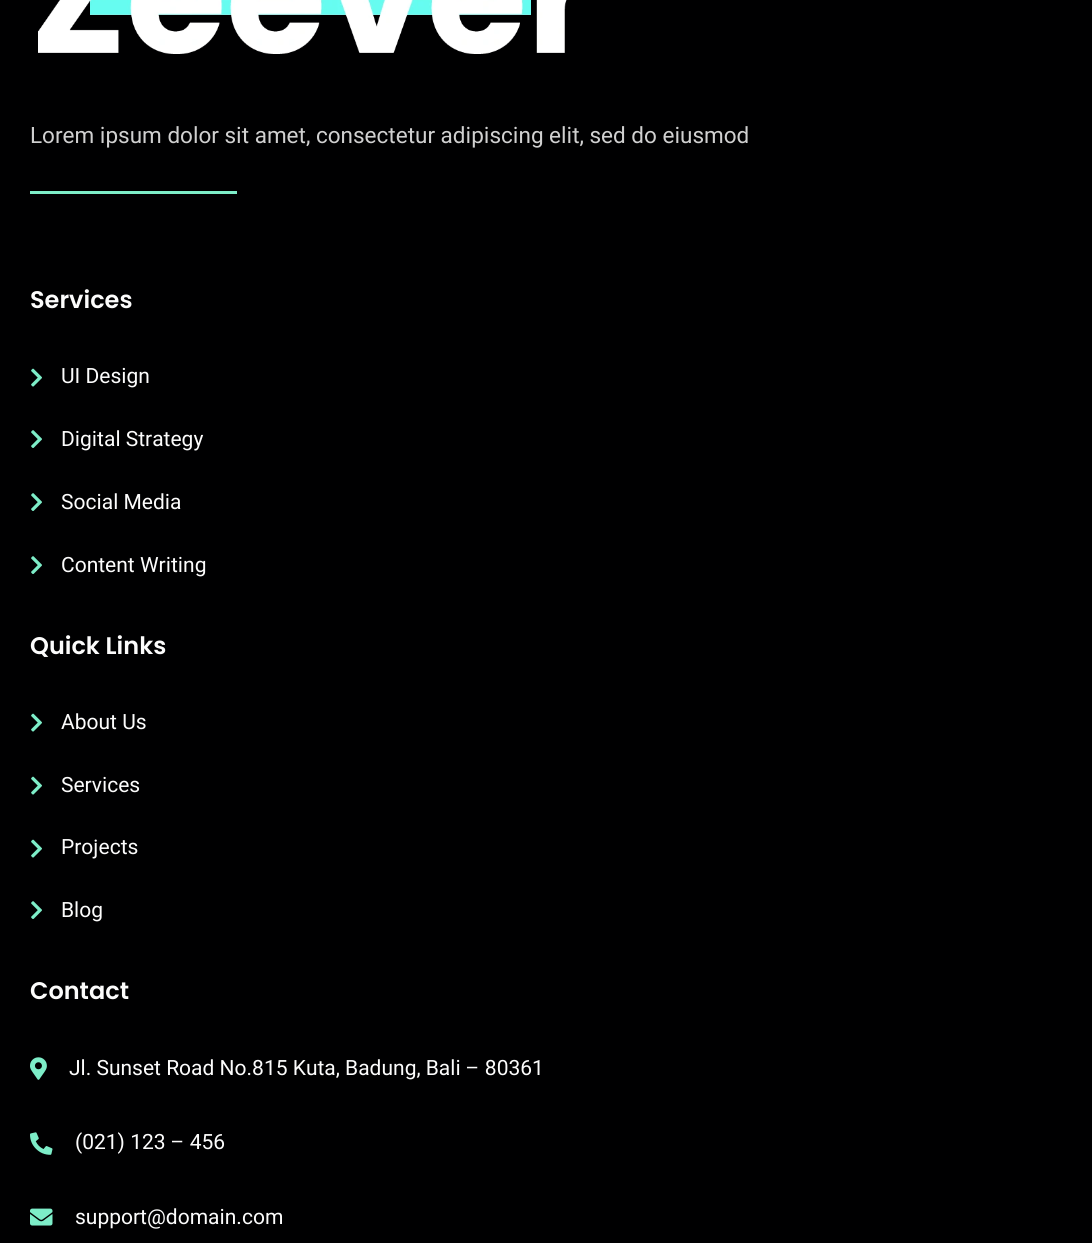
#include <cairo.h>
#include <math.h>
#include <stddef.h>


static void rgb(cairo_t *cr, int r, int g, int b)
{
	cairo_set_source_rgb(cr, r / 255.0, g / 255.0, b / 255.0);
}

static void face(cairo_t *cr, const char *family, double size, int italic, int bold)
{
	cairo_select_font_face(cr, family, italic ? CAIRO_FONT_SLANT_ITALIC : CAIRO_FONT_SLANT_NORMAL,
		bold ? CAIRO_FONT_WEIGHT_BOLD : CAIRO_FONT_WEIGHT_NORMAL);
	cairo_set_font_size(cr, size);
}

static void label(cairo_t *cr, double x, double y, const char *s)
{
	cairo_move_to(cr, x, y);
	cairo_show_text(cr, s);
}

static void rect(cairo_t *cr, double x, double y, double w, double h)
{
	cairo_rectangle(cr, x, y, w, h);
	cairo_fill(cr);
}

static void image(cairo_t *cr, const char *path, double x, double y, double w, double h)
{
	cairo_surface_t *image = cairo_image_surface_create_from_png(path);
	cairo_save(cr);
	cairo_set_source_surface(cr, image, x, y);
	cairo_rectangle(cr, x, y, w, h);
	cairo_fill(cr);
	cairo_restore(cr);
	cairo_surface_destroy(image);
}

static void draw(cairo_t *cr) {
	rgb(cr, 0, 0, 1);
	cairo_paint(cr);
	image(cr, "image0.png", 38, 0, 529, 54);
	face(cr, "Heebo", 22.5, 0, 0);
	rgb(cr, 208, 208, 208);
	label(cr, 30, 143, "Lorem ipsum dolor sit amet, consectetur adipiscing elit, sed do eiusmod");
	rgb(cr, 125, 237, 200);
	rect(cr, 30, 191, 207, 3);
	face(cr, "Poppins SemiBold", 24, 0, 0);
	rgb(cr, 252, 252, 252);
	label(cr, 30, 308, "Services");
	image(cr, "image1.png", 31, 368, 11, 19);
	face(cr, "Heebo", 21, 0, 0);
	label(cr, 61, 383, "UI Design");
	image(cr, "image2.png", 31, 430, 11, 18);
	label(cr, 61, 446, "Digital Strategy");
	image(cr, "image2.png", 31, 493, 11, 18);
	label(cr, 61, 509, "Social Media");
	image(cr, "image2.png", 31, 556, 11, 18);
	label(cr, 61, 572, "Content Writing");
	face(cr, "Poppins SemiBold", 24, 0, 0);
	label(cr, 30, 654, "Quick Links");
	image(cr, "image1.png", 31, 713, 11, 19);
	face(cr, "Heebo", 21, 0, 0);
	label(cr, 61, 729, "About Us");
	image(cr, "image1.png", 31, 776, 11, 19);
	label(cr, 61, 792, "Services");
	image(cr, "image1.png", 31, 839, 11, 19);
	label(cr, 61, 854, "Projects");
	image(cr, "image2.png", 31, 901, 11, 18);
	label(cr, 61, 917, "Blog");
	face(cr, "Poppins SemiBold", 24, 0, 0);
	label(cr, 30, 999, "Contact");
	image(cr, "image3.png", 30, 1057, 17, 23);
	face(cr, "Heebo", 21, 0, 0);
	label(cr, 69, 1075, "Jl. Sunset Road No.815 Kuta, Badung, Bali – 80361");
	image(cr, "image4.png", 30, 1132, 23, 23);
	label(cr, 75, 1149, "(021) 123 – 456");
	image(cr, "image5.png", 30, 1208, 23, 18);
	label(cr, 75, 1224, "support@domain.com");
}

int main(void) {
	cairo_surface_t *surface = cairo_image_surface_create(CAIRO_FORMAT_RGB24, 1092, 1243);
	cairo_t *cr = cairo_create(surface);
	cairo_font_options_t *options = cairo_font_options_create();
	cairo_font_options_set_hint_metrics(options, CAIRO_HINT_METRICS_OFF);
	cairo_font_options_set_hint_style(options, CAIRO_HINT_STYLE_NONE);
	cairo_set_font_options(cr, options);
	cairo_set_miter_limit(cr, 4);
	draw(cr);
	cairo_surface_write_to_png(surface, "render.png");
	cairo_font_options_destroy(options);
	cairo_destroy(cr);
	cairo_surface_destroy(surface);
	return 0;
}
